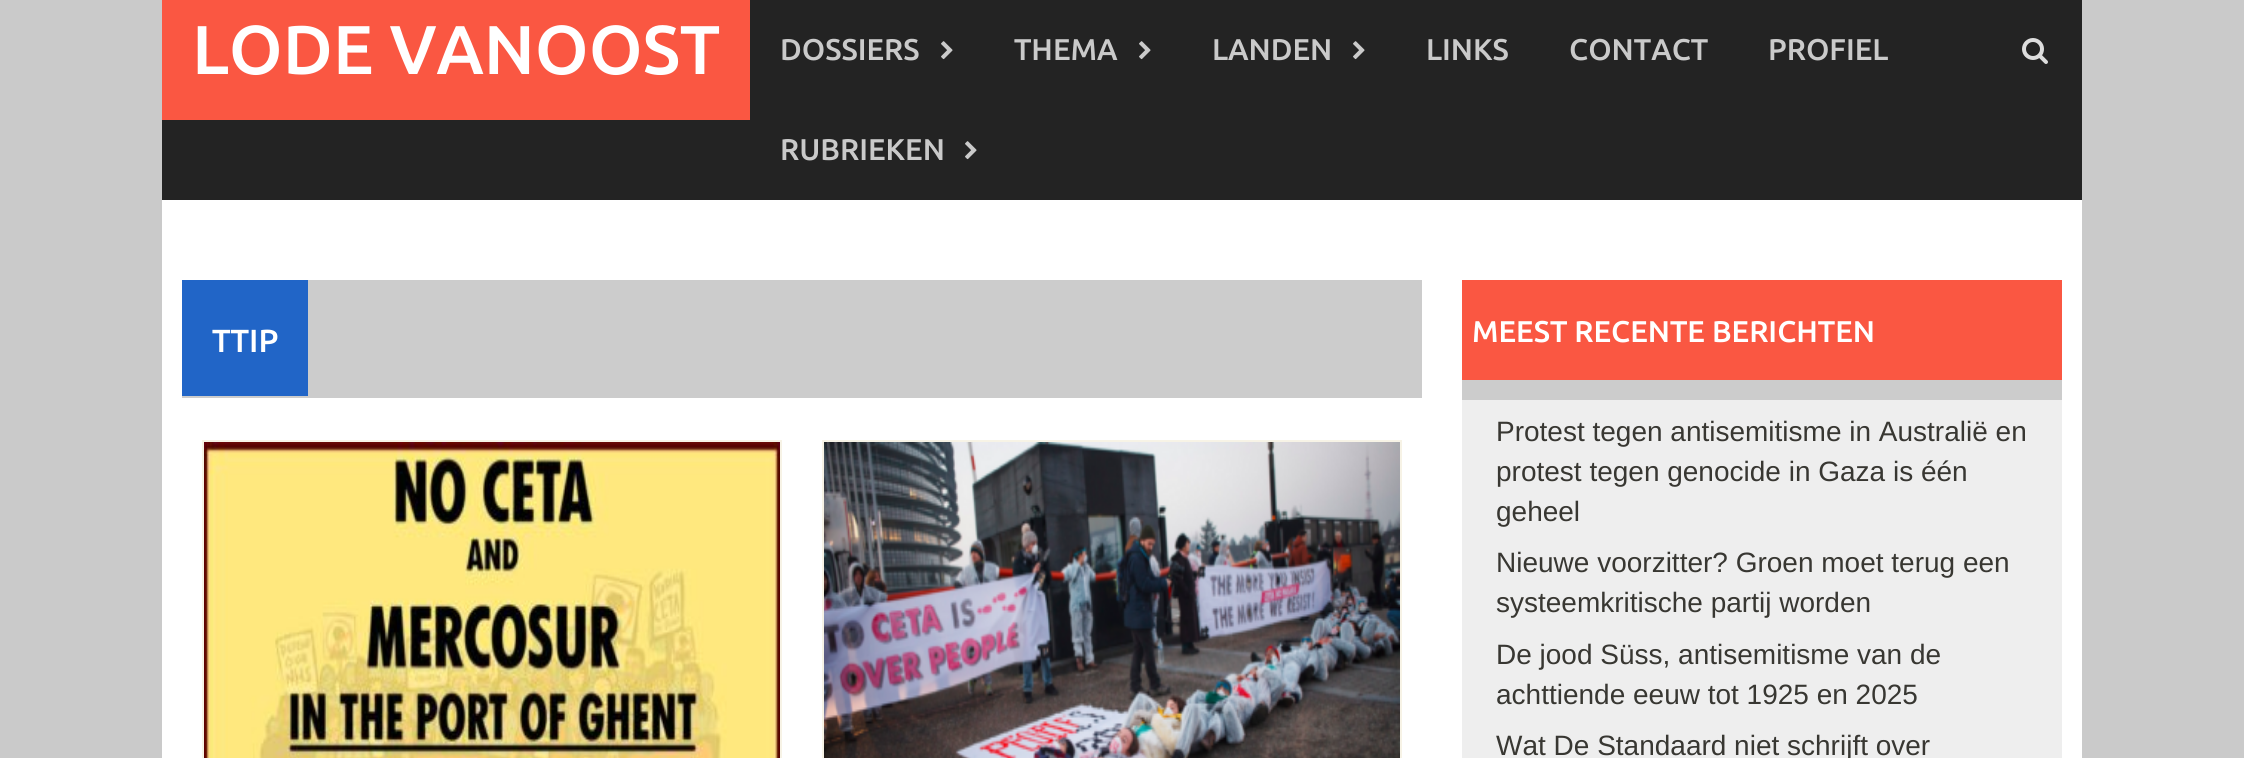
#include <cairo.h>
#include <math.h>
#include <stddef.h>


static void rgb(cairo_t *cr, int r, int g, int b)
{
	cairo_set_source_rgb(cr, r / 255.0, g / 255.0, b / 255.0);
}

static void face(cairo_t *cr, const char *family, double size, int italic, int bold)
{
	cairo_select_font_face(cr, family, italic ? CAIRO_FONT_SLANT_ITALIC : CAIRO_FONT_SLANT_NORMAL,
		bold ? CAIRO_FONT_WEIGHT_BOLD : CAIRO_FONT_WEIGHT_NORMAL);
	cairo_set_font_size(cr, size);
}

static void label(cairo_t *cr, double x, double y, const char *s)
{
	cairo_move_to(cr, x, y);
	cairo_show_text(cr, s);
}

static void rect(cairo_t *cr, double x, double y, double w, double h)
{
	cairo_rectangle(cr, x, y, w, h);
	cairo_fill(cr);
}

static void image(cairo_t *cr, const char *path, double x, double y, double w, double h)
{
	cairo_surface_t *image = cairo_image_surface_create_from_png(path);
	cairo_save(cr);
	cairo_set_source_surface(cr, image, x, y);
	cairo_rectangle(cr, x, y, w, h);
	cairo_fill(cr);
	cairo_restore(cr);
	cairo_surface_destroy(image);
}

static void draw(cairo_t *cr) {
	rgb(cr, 202, 202, 202);
	cairo_paint(cr);
	rgb(cr, 35, 35, 35);
	rect(cr, 162, 0, 1920, 200);
	rgb(cr, 250, 87, 66);
	rect(cr, 162, 0, 588, 120);
	face(cr, "Ubuntu Medium", 69, 0, 0);
	rgb(cr, 255, 255, 255);
	label(cr, 192, 74, "LODE VANOOST");
	face(cr, "Ubuntu Medium", 30, 0, 0);
	rgb(cr, 202, 202, 202);
	label(cr, 780, 60, "DOSSIERS");
	image(cr, "image0.png", 941, 41, 12, 19);
	label(cr, 1014, 60, "THEMA");
	image(cr, "image0.png", 1139, 41, 12, 19);
	label(cr, 1212, 60, "LANDEN");
	image(cr, "image0.png", 1353, 41, 12, 19);
	label(cr, 1426, 60, "LINKS");
	label(cr, 1569, 60, "CONTACT");
	label(cr, 1768, 60, "PROFIEL");
	label(cr, 780, 160, "RUBRIEKEN");
	image(cr, "image0.png", 965, 141, 12, 19);
	image(cr, "image1.png", 2022, 38, 26, 26);
	rgb(cr, 255, 255, 255);
	rect(cr, 162, 200, 1920, 558);
	rgb(cr, 204, 204, 204);
	rect(cr, 182, 280, 1240, 118);
	rgb(cr, 33, 101, 199);
	rect(cr, 182, 280, 126, 116);
	face(cr, "Ubuntu Medium", 32, 0, 0);
	rgb(cr, 255, 255, 255);
	label(cr, 212, 352, "TTIP");
	cairo_rectangle(cr, 203, 441, 578, 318);
	rgb(cr, 247, 243, 230);
	cairo_stroke(cr);
	image(cr, "image2.png", 204, 442, 576, 316);
	cairo_rectangle(cr, 823, 441, 578, 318);
	cairo_stroke(cr);
	image(cr, "image3.png", 824, 442, 576, 316);
	rgb(cr, 238, 238, 238);
	rect(cr, 1462, 400, 600, 358);
	rgb(cr, 204, 204, 204);
	rect(cr, 1462, 380, 600, 20);
	rgb(cr, 250, 87, 66);
	rect(cr, 1462, 280, 600, 100);
	face(cr, "Ubuntu Medium", 30, 0, 0);
	rgb(cr, 255, 255, 255);
	label(cr, 1472, 342, "MEEST RECENTE BERICHTEN");
	face(cr, "Liberation Sans", 28, 0, 0);
	rgb(cr, 56, 55, 50);
	label(cr, 1496, 441, "Protest tegen antisemitisme in Australië en");
	label(cr, 1496, 481, "protest tegen genocide in Gaza is één");
	label(cr, 1496, 521, "geheel");
	label(cr, 1496, 572, "Nieuwe voorzitter? Groen moet terug een");
	label(cr, 1496, 612, "systeemkritische partij worden");
	label(cr, 1496, 664, "De jood Süss, antisemitisme van de");
	label(cr, 1496, 704, "achttiende eeuw tot 1925 en 2025");
	label(cr, 1496, 755, "Wat De Standaard niet schrijft over");
}

int main(void) {
	cairo_surface_t *surface = cairo_image_surface_create(CAIRO_FORMAT_RGB24, 2244, 758);
	cairo_t *cr = cairo_create(surface);
	cairo_font_options_t *options = cairo_font_options_create();
	cairo_font_options_set_hint_metrics(options, CAIRO_HINT_METRICS_OFF);
	cairo_font_options_set_hint_style(options, CAIRO_HINT_STYLE_NONE);
	cairo_set_font_options(cr, options);
	cairo_set_miter_limit(cr, 4);
	draw(cr);
	cairo_surface_write_to_png(surface, "render.png");
	cairo_font_options_destroy(options);
	cairo_destroy(cr);
	cairo_surface_destroy(surface);
	return 0;
}
